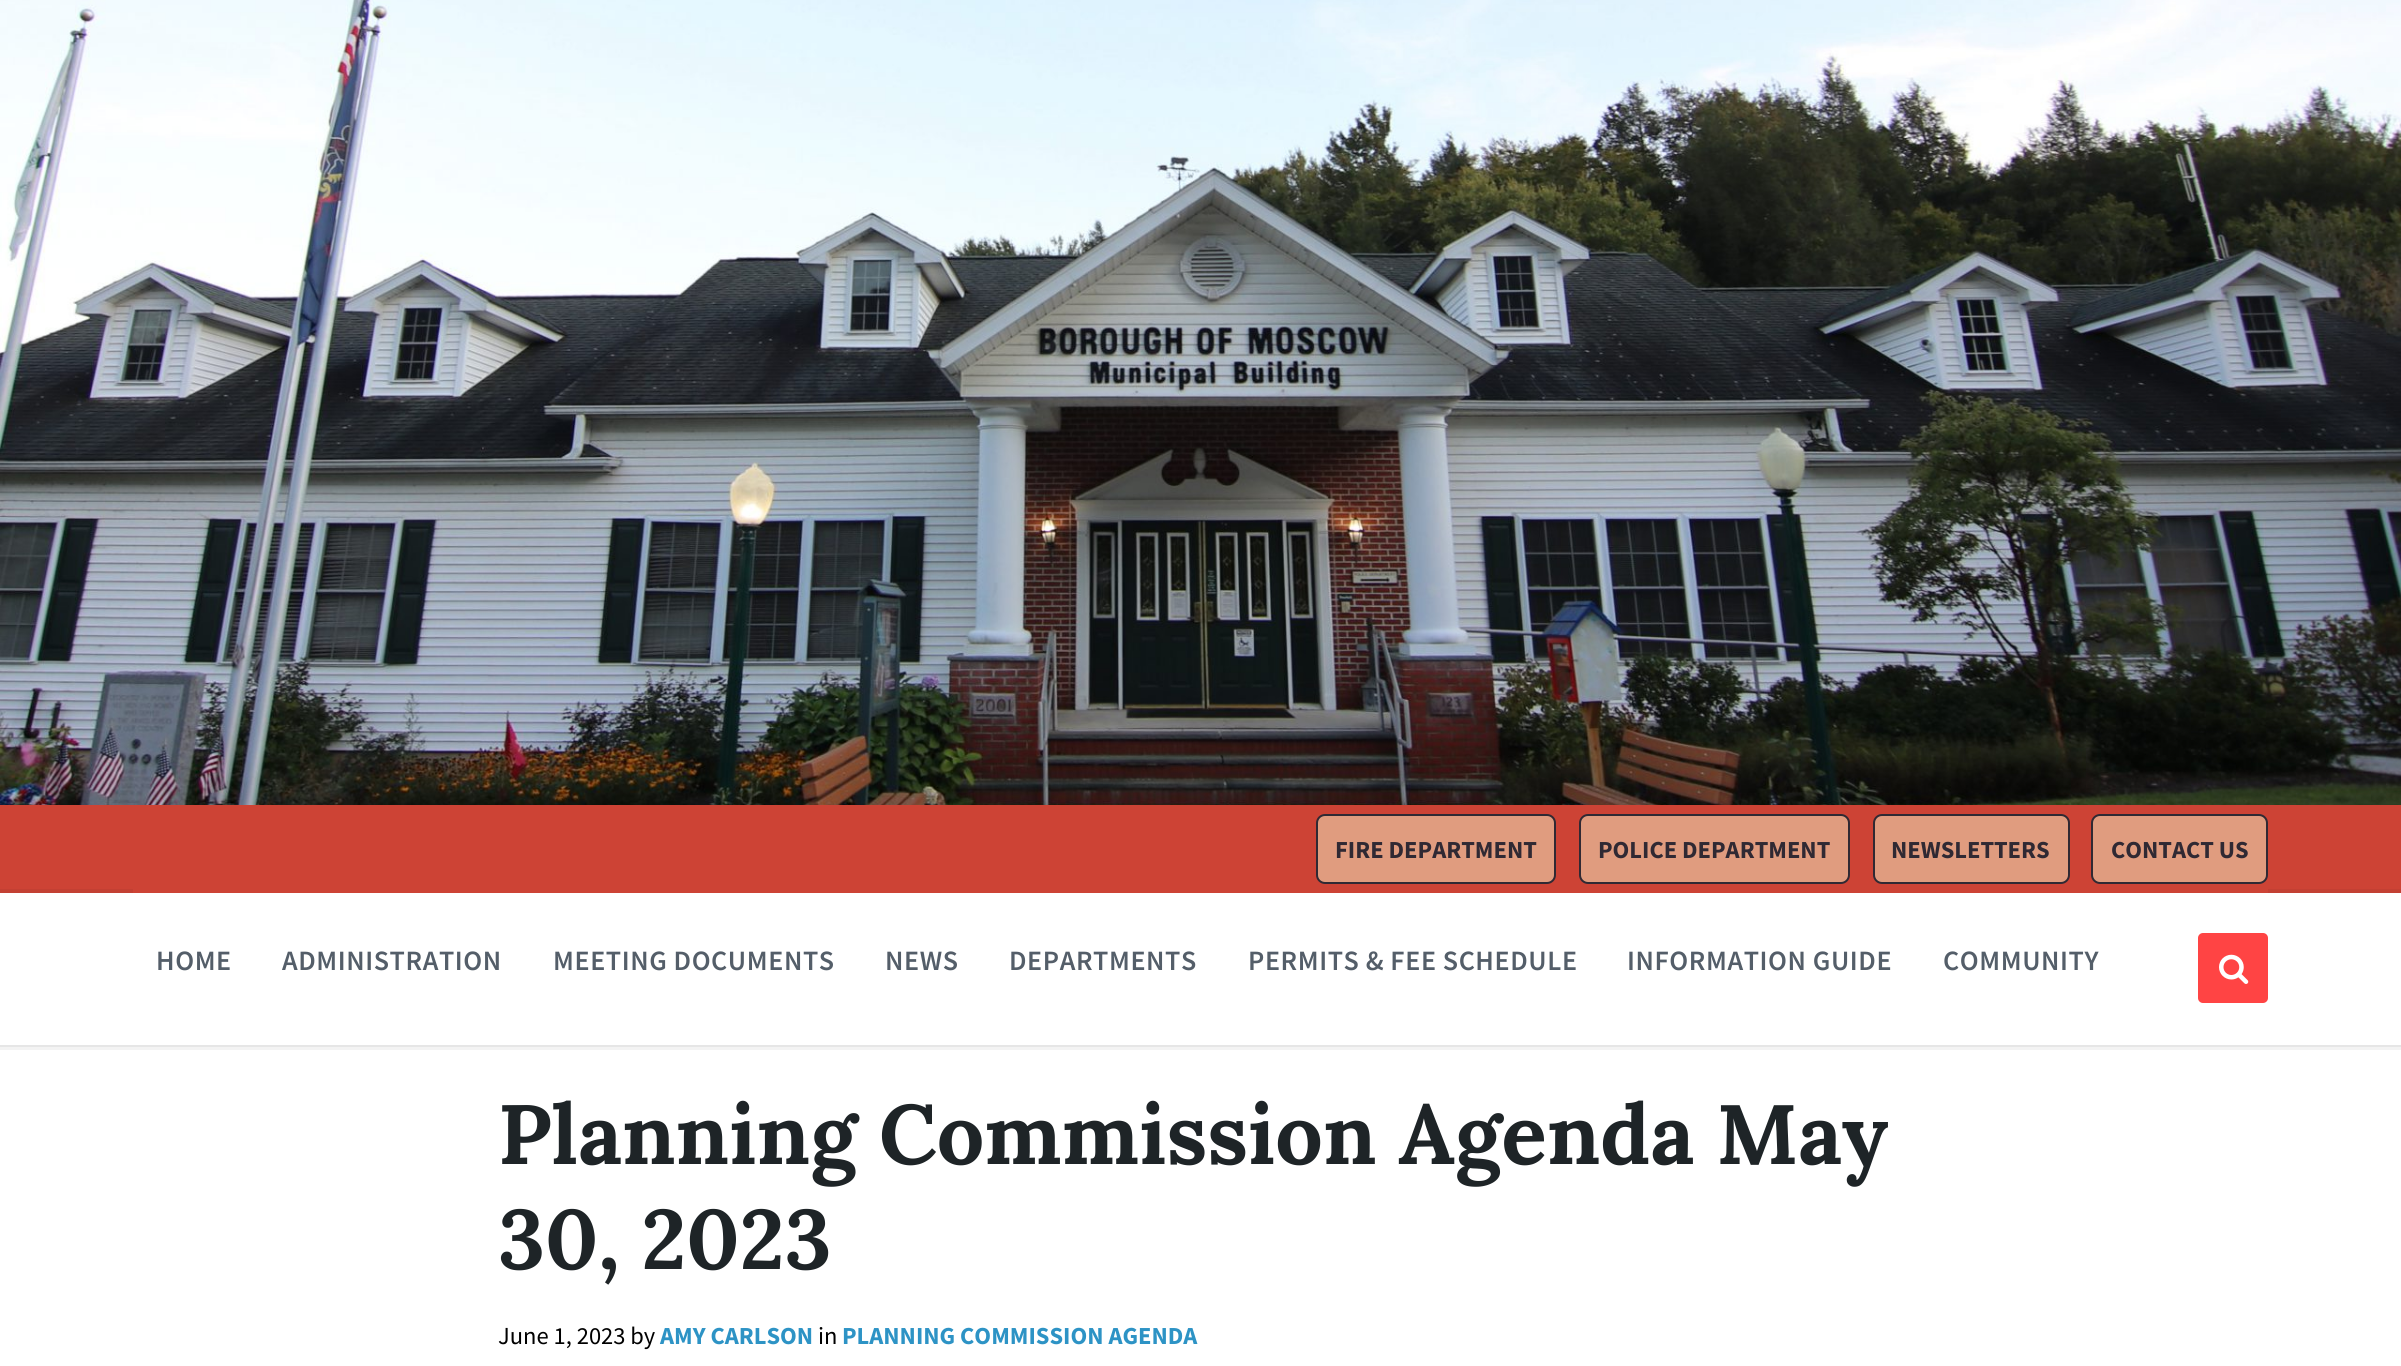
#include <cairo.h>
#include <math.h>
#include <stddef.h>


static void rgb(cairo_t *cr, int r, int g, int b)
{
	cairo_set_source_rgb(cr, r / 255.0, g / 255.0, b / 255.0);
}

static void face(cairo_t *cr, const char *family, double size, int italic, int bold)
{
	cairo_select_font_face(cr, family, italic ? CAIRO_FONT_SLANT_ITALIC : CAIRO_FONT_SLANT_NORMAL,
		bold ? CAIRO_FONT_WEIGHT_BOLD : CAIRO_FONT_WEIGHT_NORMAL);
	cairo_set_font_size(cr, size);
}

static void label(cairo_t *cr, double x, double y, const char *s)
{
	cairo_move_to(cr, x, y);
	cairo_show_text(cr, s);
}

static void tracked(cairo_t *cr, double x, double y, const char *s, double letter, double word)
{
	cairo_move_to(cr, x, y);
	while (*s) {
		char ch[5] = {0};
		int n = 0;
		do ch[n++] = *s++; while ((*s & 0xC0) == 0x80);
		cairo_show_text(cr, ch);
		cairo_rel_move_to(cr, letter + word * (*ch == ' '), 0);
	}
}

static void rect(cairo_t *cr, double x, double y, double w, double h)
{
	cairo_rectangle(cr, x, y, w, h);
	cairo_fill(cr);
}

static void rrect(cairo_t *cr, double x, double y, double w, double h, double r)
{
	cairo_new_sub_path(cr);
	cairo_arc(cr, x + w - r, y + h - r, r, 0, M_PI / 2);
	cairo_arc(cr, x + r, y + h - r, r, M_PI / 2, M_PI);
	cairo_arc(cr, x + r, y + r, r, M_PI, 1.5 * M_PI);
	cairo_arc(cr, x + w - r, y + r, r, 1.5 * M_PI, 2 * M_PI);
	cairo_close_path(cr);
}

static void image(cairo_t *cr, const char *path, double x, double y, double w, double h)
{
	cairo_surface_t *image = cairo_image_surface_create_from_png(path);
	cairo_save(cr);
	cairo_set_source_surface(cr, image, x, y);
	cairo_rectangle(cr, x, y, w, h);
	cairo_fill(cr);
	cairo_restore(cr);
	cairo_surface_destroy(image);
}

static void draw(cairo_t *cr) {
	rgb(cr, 255, 255, 255);
	cairo_paint(cr);
	image(cr, "image0.png", 0, 0, 2401, 805);
	rgb(cr, 205, 67, 53);
	rect(cr, 0, 805, 2401, 88);
	cairo_rectangle(cr, -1, 891, 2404, 157);
	cairo_set_source_rgba(cr, 0, 0, 0, 0.05);
	cairo_set_line_width(cr, 4);
	cairo_stroke(cr);
	rgb(cr, 205, 67, 53);
	rect(cr, 133, 889, 2135, 4);
	rgb(cr, 224, 156, 127);
	rrect(cr, 1317, 815, 238, 68, 8);
	cairo_fill_preserve(cr);
	rgb(cr, 48, 41, 51);
	cairo_set_line_width(cr, 2);
	cairo_stroke(cr);
	face(cr, "Source Sans Pro", 24.5, 0, 1);
	label(cr, 1335, 858, "FIRE DEPARTMENT");
	rgb(cr, 224, 156, 127);
	rrect(cr, 1580, 815, 269, 68, 8);
	cairo_fill_preserve(cr);
	rgb(cr, 48, 41, 51);
	cairo_stroke(cr);
	label(cr, 1598, 858, "POLICE DEPARTMENT");
	rgb(cr, 224, 156, 127);
	rrect(cr, 1874, 815, 195, 68, 8);
	cairo_fill_preserve(cr);
	rgb(cr, 48, 41, 51);
	cairo_stroke(cr);
	label(cr, 1891, 858, "NEWSLETTERS");
	rgb(cr, 224, 156, 127);
	rrect(cr, 2092, 815, 175, 68, 8);
	cairo_fill_preserve(cr);
	rgb(cr, 48, 41, 51);
	cairo_stroke(cr);
	label(cr, 2111, 858, "CONTACT US");
	rgb(cr, 255, 255, 255);
	rect(cr, 0, 893, 1, 152);
	rgb(cr, 230, 230, 230);
	rect(cr, 0, 1045, 2401, 2);
	face(cr, "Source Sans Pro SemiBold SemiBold", 28, 0, 0);
	rgb(cr, 84, 94, 105);
	tracked(cr, 156, 970, "HOME", 0.6, 0);
	tracked(cr, 282, 970, "ADMINISTRATION", 0.6, 0);
	tracked(cr, 553, 970, "MEETING DOCUMENTS", 0.6, 0);
	tracked(cr, 885, 970, "NEWS", 0.6, 0);
	tracked(cr, 1009, 970, "DEPARTMENTS", 0.6, 0);
	tracked(cr, 1248, 970, "PERMITS & FEE SCHEDULE", 0.6, 0);
	tracked(cr, 1627, 970, "INFORMATION GUIDE", 0.6, 0);
	tracked(cr, 1943, 970, "COMMUNITY", 0.6, 0);
	rgb(cr, 255, 68, 68);
	rrect(cr, 2198, 933, 70, 70, 5);
	cairo_fill(cr);
	image(cr, "image1.png", 2219, 954, 30, 30);
	face(cr, "Lora", 84, 0, 1);
	rgb(cr, 30, 36, 39);
	label(cr, 498, 1164, "Planning Commission Agenda May");
	label(cr, 498, 1269, "30, 2023");
	face(cr, "Source Sans Pro", 24.5, 0, 0);
	rgb(cr, 0, 0, 0);
	label(cr, 498, 1344, "June 1, 2023 by");
	face(cr, "Source Sans Pro", 24.5, 0, 1);
	rgb(cr, 45, 147, 197);
	label(cr, 660, 1344, "AMY CARLSON");
	face(cr, "Source Sans Pro", 24.5, 0, 0);
	rgb(cr, 0, 0, 0);
	label(cr, 818, 1344, "in");
	face(cr, "Source Sans Pro", 24.5, 0, 1);
	rgb(cr, 45, 147, 197);
	label(cr, 842, 1344, "PLANNING COMMISSION AGENDA");
}

int main(void) {
	cairo_surface_t *surface = cairo_image_surface_create(CAIRO_FORMAT_RGB24, 2401, 1366);
	cairo_t *cr = cairo_create(surface);
	cairo_font_options_t *options = cairo_font_options_create();
	cairo_font_options_set_hint_metrics(options, CAIRO_HINT_METRICS_OFF);
	cairo_font_options_set_hint_style(options, CAIRO_HINT_STYLE_NONE);
	cairo_set_font_options(cr, options);
	cairo_set_miter_limit(cr, 4);
	draw(cr);
	cairo_surface_write_to_png(surface, "render.png");
	cairo_font_options_destroy(options);
	cairo_destroy(cr);
	cairo_surface_destroy(surface);
	return 0;
}
